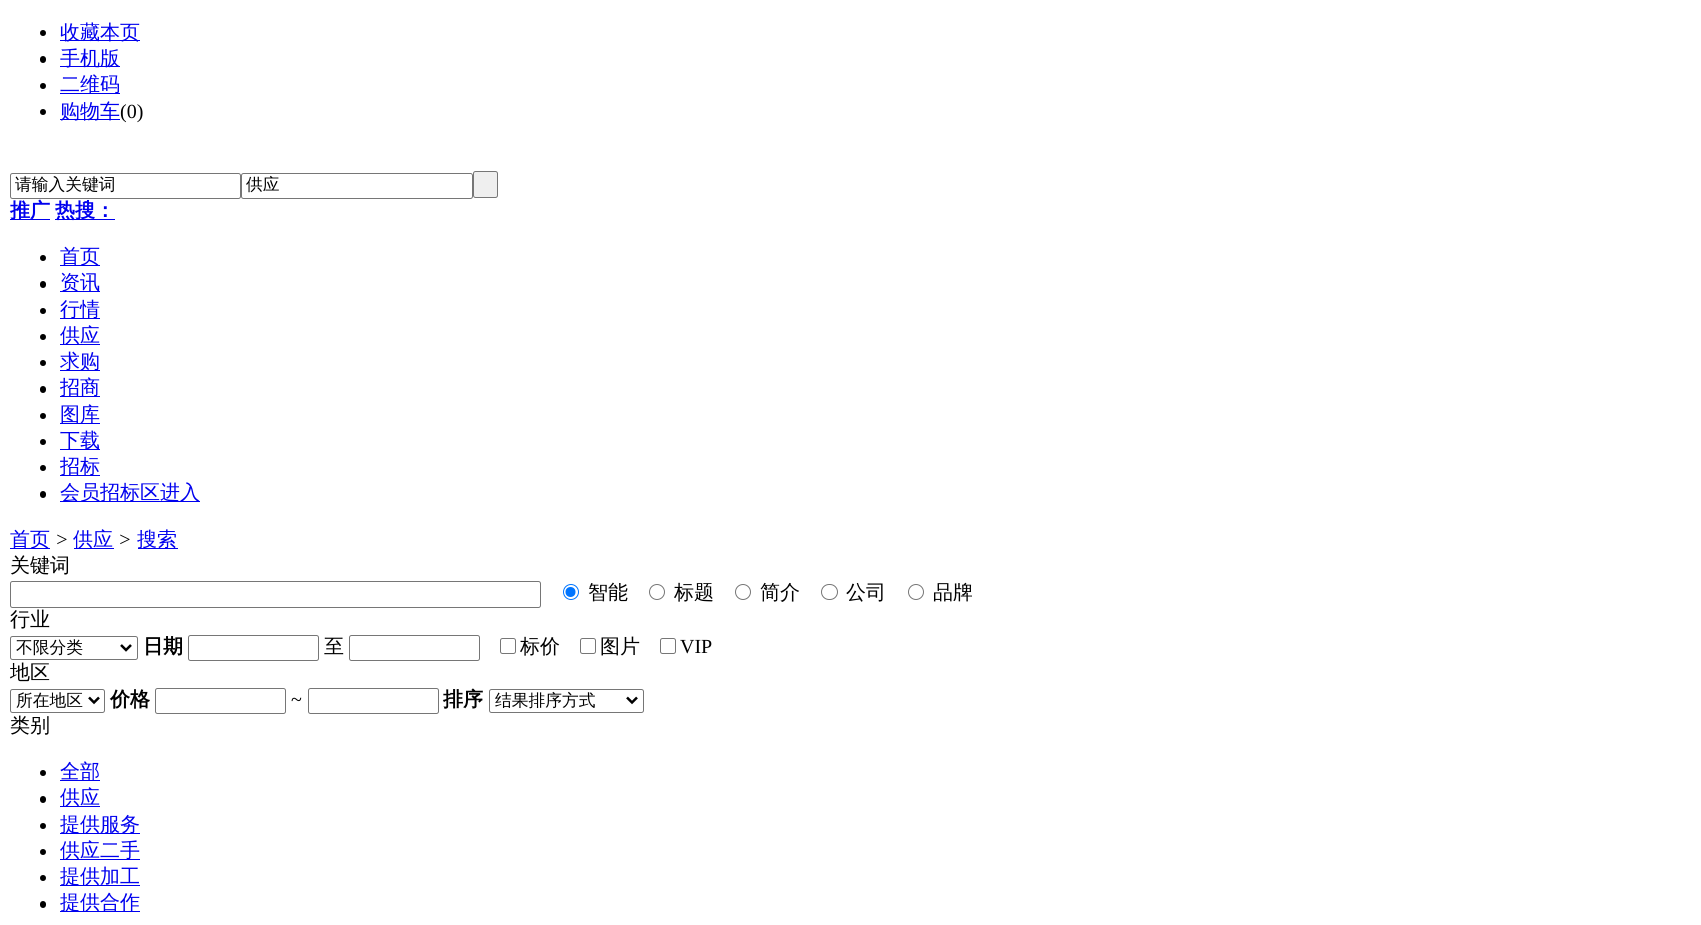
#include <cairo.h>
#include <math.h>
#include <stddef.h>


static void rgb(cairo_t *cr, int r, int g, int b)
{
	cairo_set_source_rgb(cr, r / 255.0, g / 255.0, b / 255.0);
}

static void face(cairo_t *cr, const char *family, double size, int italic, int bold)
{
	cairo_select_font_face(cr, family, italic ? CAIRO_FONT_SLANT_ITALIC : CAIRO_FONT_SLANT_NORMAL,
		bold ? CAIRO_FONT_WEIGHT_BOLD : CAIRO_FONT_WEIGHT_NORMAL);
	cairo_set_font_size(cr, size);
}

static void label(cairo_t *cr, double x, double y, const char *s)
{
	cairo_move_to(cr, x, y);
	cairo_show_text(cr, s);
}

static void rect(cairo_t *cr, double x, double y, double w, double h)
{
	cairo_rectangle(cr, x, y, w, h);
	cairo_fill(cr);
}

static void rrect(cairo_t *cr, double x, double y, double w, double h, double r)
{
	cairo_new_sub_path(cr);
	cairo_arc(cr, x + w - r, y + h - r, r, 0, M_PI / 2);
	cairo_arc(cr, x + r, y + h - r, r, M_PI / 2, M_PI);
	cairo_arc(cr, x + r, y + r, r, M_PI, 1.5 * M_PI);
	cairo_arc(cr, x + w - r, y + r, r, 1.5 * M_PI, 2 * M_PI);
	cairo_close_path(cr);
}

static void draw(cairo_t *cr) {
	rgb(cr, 255, 255, 255);
	cairo_paint(cr);
	rgb(cr, 0, 0, 0);
	cairo_arc(cr, 43, 33, 3, 0, 2 * M_PI);
	cairo_fill(cr);
	rgb(cr, 0, 0, 238);
	rect(cr, 60, 40, 80, 1);
	face(cr, "WenQuanYi Zen Hei Medium", 20, 0, 0);
	label(cr, 60, 39, "收藏本页");
	rgb(cr, 0, 0, 0);
	rrect(cr, 40, 56, 6, 7, 3);
	cairo_fill(cr);
	rgb(cr, 0, 0, 238);
	rect(cr, 60, 66, 60, 1);
	label(cr, 60, 65, "手机版");
	rgb(cr, 0, 0, 0);
	cairo_new_path(cr);
	cairo_arc(cr, 43, 86, 3, 0, 2 * M_PI);
	cairo_fill(cr);
	rgb(cr, 0, 0, 238);
	rect(cr, 60, 93, 60, 1);
	label(cr, 60, 91, "二维码");
	rgb(cr, 0, 0, 0);
	cairo_new_path(cr);
	cairo_arc(cr, 43, 112, 3, 0, 2 * M_PI);
	cairo_fill(cr);
	rgb(cr, 0, 0, 238);
	rect(cr, 60, 119, 60, 1);
	label(cr, 60, 118, "购物车");
	face(cr, "Liberation Serif", 20, 0, 0);
	rgb(cr, 0, 0, 0);
	label(cr, 120, 118, "(0)");
	rrect(cr, 10.5, 173.5, 230, 25, 2);
	rgb(cr, 118, 118, 118);
	cairo_set_line_width(cr, 1);
	cairo_stroke(cr);
	face(cr, "WenQuanYi Zen Hei Medium", 16.75, 0, 0);
	rgb(cr, 0, 0, 0);
	label(cr, 15, 190, "请输入关键词");
	rrect(cr, 241.5, 173.5, 231, 25, 2);
	rgb(cr, 118, 118, 118);
	cairo_stroke(cr);
	rgb(cr, 0, 0, 0);
	label(cr, 246, 190, "供应");
	rgb(cr, 239, 239, 239);
	rrect(cr, 473.5, 171.5, 24, 26, 2);
	cairo_fill_preserve(cr);
	rgb(cr, 118, 118, 118);
	cairo_stroke(cr);
	rgb(cr, 0, 0, 238);
	rect(cr, 10, 219, 40, 1);
	face(cr, "WenQuanYi Zen Hei", 20, 0, 1);
	label(cr, 10, 217, "推广");
	rect(cr, 55, 219, 60, 1);
	label(cr, 55, 217, "热搜：");
	rgb(cr, 0, 0, 0);
	cairo_new_path(cr);
	cairo_arc(cr, 43, 258, 3, 0, 2 * M_PI);
	cairo_fill(cr);
	rgb(cr, 0, 0, 238);
	rect(cr, 60, 265, 40, 1);
	face(cr, "WenQuanYi Zen Hei Medium", 20, 0, 0);
	label(cr, 60, 263, "首页");
	rgb(cr, 0, 0, 0);
	rrect(cr, 40, 281, 6, 7, 3);
	cairo_fill(cr);
	rgb(cr, 0, 0, 238);
	rect(cr, 60, 291, 40, 1);
	label(cr, 60, 289, "资讯");
	rgb(cr, 0, 0, 0);
	cairo_new_path(cr);
	cairo_arc(cr, 43, 311, 3, 0, 2 * M_PI);
	cairo_fill(cr);
	rgb(cr, 0, 0, 238);
	rect(cr, 60, 318, 40, 1);
	label(cr, 60, 316, "行情");
	rgb(cr, 0, 0, 0);
	cairo_new_path(cr);
	cairo_arc(cr, 43, 337, 3, 0, 2 * M_PI);
	cairo_fill(cr);
	rgb(cr, 0, 0, 238);
	rect(cr, 60, 344, 40, 1);
	label(cr, 60, 342, "供应");
	rgb(cr, 0, 0, 0);
	cairo_new_path(cr);
	cairo_arc(cr, 43, 363, 3, 0, 2 * M_PI);
	cairo_fill(cr);
	rgb(cr, 0, 0, 238);
	rect(cr, 60, 370, 40, 1);
	label(cr, 60, 368, "求购");
	rgb(cr, 0, 0, 0);
	rrect(cr, 40, 386, 6, 7, 3);
	cairo_fill(cr);
	rgb(cr, 0, 0, 238);
	rect(cr, 60, 396, 40, 1);
	label(cr, 60, 394, "招商");
	rgb(cr, 0, 0, 0);
	cairo_new_path(cr);
	cairo_arc(cr, 43, 416, 3, 0, 2 * M_PI);
	cairo_fill(cr);
	rgb(cr, 0, 0, 238);
	rect(cr, 60, 423, 40, 1);
	label(cr, 60, 421, "图库");
	rgb(cr, 0, 0, 0);
	cairo_new_path(cr);
	cairo_arc(cr, 43, 442, 3, 0, 2 * M_PI);
	cairo_fill(cr);
	rgb(cr, 0, 0, 238);
	rect(cr, 60, 449, 40, 1);
	label(cr, 60, 447, "下载");
	rgb(cr, 0, 0, 0);
	cairo_new_path(cr);
	cairo_arc(cr, 43, 468, 3, 0, 2 * M_PI);
	cairo_fill(cr);
	rgb(cr, 0, 0, 238);
	rect(cr, 60, 475, 40, 1);
	label(cr, 60, 473, "招标");
	rgb(cr, 0, 0, 0);
	rrect(cr, 40, 491, 6, 7, 3);
	cairo_fill(cr);
	rgb(cr, 0, 0, 238);
	rect(cr, 60, 501, 140, 1);
	label(cr, 60, 499, "会员招标区进入");
	rect(cr, 10, 548, 40, 1);
	label(cr, 10, 546, "首页");
	face(cr, "Liberation Serif", 20, 1, 0);
	rgb(cr, 0, 0, 0);
	label(cr, 55, 546, ">");
	rgb(cr, 0, 0, 238);
	rect(cr, 74, 548, 40, 1);
	face(cr, "WenQuanYi Zen Hei Medium", 20, 0, 0);
	label(cr, 73, 546, "供应");
	face(cr, "Liberation Serif", 20, 1, 0);
	rgb(cr, 0, 0, 0);
	label(cr, 118, 546, ">");
	rgb(cr, 0, 0, 238);
	rect(cr, 138, 548, 40, 1);
	face(cr, "WenQuanYi Zen Hei Medium", 20, 0, 0);
	label(cr, 137, 546, "搜索");
	rgb(cr, 0, 0, 0);
	label(cr, 10, 572, "关键词");
	rrect(cr, 10.5, 581.5, 530, 26, 2);
	rgb(cr, 118, 118, 118);
	cairo_stroke(cr);
	cairo_arc(cr, 571, 592, 7.5, 0, 2 * M_PI);
	rgb(cr, 0, 117, 255);
	cairo_stroke(cr);
	cairo_arc(cr, 570.5, 592, 5, 0, 2 * M_PI);
	cairo_fill(cr);
	rgb(cr, 0, 0, 0);
	label(cr, 588, 599, "智能");
	cairo_new_path(cr);
	cairo_arc(cr, 657, 592, 7.5, 0, 2 * M_PI);
	rgb(cr, 118, 118, 118);
	cairo_stroke(cr);
	rgb(cr, 0, 0, 0);
	label(cr, 674, 599, "标题");
	cairo_new_path(cr);
	cairo_arc(cr, 743, 592, 7.5, 0, 2 * M_PI);
	rgb(cr, 118, 118, 118);
	cairo_stroke(cr);
	rgb(cr, 0, 0, 0);
	label(cr, 760, 599, "简介");
	rrect(cr, 821.5, 584.5, 16, 15, 7.5);
	rgb(cr, 118, 118, 118);
	cairo_stroke(cr);
	rgb(cr, 0, 0, 0);
	label(cr, 846, 599, "公司");
	cairo_new_path(cr);
	cairo_arc(cr, 916, 592, 7.5, 0, 2 * M_PI);
	rgb(cr, 118, 118, 118);
	cairo_stroke(cr);
	rgb(cr, 0, 0, 0);
	label(cr, 933, 599, "品牌");
	label(cr, 10, 626, "行业");
	rrect(cr, 10.5, 636.5, 127, 23, 2);
	rgb(cr, 118, 118, 118);
	cairo_stroke(cr);
	cairo_new_path(cr);
	cairo_move_to(cr, 121, 645);
	cairo_line_to(cr, 126, 650);
	cairo_line_to(cr, 131, 645);
	rgb(cr, 0, 0, 0);
	cairo_set_line_width(cr, 2.5);
	cairo_stroke(cr);
	face(cr, "WenQuanYi Zen Hei Medium", 16.75, 0, 0);
	label(cr, 16, 653, "不限分类");
	face(cr, "WenQuanYi Zen Hei", 20, 0, 1);
	label(cr, 143, 653, "日期");
	rrect(cr, 188.5, 635.5, 130, 25, 2);
	rgb(cr, 118, 118, 118);
	cairo_set_line_width(cr, 1);
	cairo_stroke(cr);
	face(cr, "WenQuanYi Zen Hei Medium", 20, 0, 0);
	rgb(cr, 0, 0, 0);
	label(cr, 324, 653, "至");
	rrect(cr, 349.5, 635.5, 130, 25, 2);
	rgb(cr, 118, 118, 118);
	cairo_stroke(cr);
	rrect(cr, 500.5, 638.5, 15, 15, 2);
	cairo_stroke(cr);
	rgb(cr, 0, 0, 0);
	label(cr, 520, 653, "标价");
	rrect(cr, 580.5, 638.5, 15, 15, 2);
	rgb(cr, 118, 118, 118);
	cairo_stroke(cr);
	rgb(cr, 0, 0, 0);
	label(cr, 600, 653, "图片");
	rrect(cr, 660.5, 638.5, 15, 15, 2);
	rgb(cr, 118, 118, 118);
	cairo_stroke(cr);
	face(cr, "Liberation Serif", 20, 0, 0);
	rgb(cr, 0, 0, 0);
	label(cr, 680, 653, "VIP");
	face(cr, "WenQuanYi Zen Hei Medium", 20, 0, 0);
	label(cr, 10, 679, "地区");
	rrect(cr, 10.5, 689.5, 94, 23, 2);
	rgb(cr, 118, 118, 118);
	cairo_stroke(cr);
	cairo_new_path(cr);
	cairo_move_to(cr, 89, 697.5);
	cairo_line_to(cr, 94, 702.5);
	cairo_line_to(cr, 99, 697.5);
	rgb(cr, 0, 0, 0);
	cairo_set_line_width(cr, 2.5);
	cairo_stroke(cr);
	face(cr, "WenQuanYi Zen Hei Medium", 16.75, 0, 0);
	label(cr, 16, 706, "所在地区");
	face(cr, "WenQuanYi Zen Hei", 20, 0, 1);
	label(cr, 110, 706, "价格");
	rrect(cr, 155.5, 688.5, 130, 25, 2);
	rgb(cr, 118, 118, 118);
	cairo_set_line_width(cr, 1);
	cairo_stroke(cr);
	face(cr, "Liberation Serif", 20, 0, 0);
	rgb(cr, 0, 0, 0);
	label(cr, 291, 706, "~");
	rrect(cr, 308.5, 688.5, 130, 25, 2);
	rgb(cr, 118, 118, 118);
	cairo_stroke(cr);
	face(cr, "WenQuanYi Zen Hei", 20, 0, 1);
	rgb(cr, 0, 0, 0);
	label(cr, 443, 706, "排序");
	rrect(cr, 489.5, 689.5, 154, 23, 2);
	rgb(cr, 118, 118, 118);
	cairo_stroke(cr);
	cairo_new_path(cr);
	cairo_move_to(cr, 627, 697.5);
	cairo_line_to(cr, 632, 702.5);
	cairo_line_to(cr, 637, 697.5);
	rgb(cr, 0, 0, 0);
	cairo_set_line_width(cr, 2.5);
	cairo_stroke(cr);
	face(cr, "WenQuanYi Zen Hei Medium", 16.75, 0, 0);
	label(cr, 495, 706, "结果排序方式");
	face(cr, "WenQuanYi Zen Hei Medium", 20, 0, 0);
	label(cr, 10, 732, "类别");
	cairo_new_path(cr);
	cairo_arc(cr, 43, 773, 3, 0, 2 * M_PI);
	cairo_fill(cr);
	rgb(cr, 0, 0, 238);
	rect(cr, 60, 780, 40, 1);
	label(cr, 60, 778, "全部");
	rgb(cr, 0, 0, 0);
	rrect(cr, 40, 796, 6, 7, 3);
	cairo_fill(cr);
	rgb(cr, 0, 0, 238);
	rect(cr, 60, 806, 40, 1);
	label(cr, 60, 804, "供应");
	rgb(cr, 0, 0, 0);
	cairo_new_path(cr);
	cairo_arc(cr, 43, 826, 3, 0, 2 * M_PI);
	cairo_fill(cr);
	rgb(cr, 0, 0, 238);
	rect(cr, 60, 833, 80, 1);
	label(cr, 60, 831, "提供服务");
	rgb(cr, 0, 0, 0);
	cairo_new_path(cr);
	cairo_arc(cr, 43, 852, 3, 0, 2 * M_PI);
	cairo_fill(cr);
	rgb(cr, 0, 0, 238);
	rect(cr, 60, 859, 80, 1);
	label(cr, 60, 857, "供应二手");
	rgb(cr, 0, 0, 0);
	cairo_new_path(cr);
	cairo_arc(cr, 43, 878, 3, 0, 2 * M_PI);
	cairo_fill(cr);
	rgb(cr, 0, 0, 238);
	rect(cr, 60, 885, 80, 1);
	label(cr, 60, 883, "提供加工");
	rgb(cr, 0, 0, 0);
	rrect(cr, 40, 901, 6, 7, 3);
	cairo_fill(cr);
	rgb(cr, 0, 0, 238);
	rect(cr, 60, 911, 80, 1);
	label(cr, 60, 909, "提供合作");
}

int main(void) {
	cairo_surface_t *surface = cairo_image_surface_create(CAIRO_FORMAT_RGB24, 1701, 925);
	cairo_t *cr = cairo_create(surface);
	cairo_font_options_t *options = cairo_font_options_create();
	cairo_font_options_set_hint_metrics(options, CAIRO_HINT_METRICS_OFF);
	cairo_font_options_set_hint_style(options, CAIRO_HINT_STYLE_NONE);
	cairo_set_font_options(cr, options);
	cairo_set_miter_limit(cr, 4);
	draw(cr);
	cairo_surface_write_to_png(surface, "render.png");
	cairo_font_options_destroy(options);
	cairo_destroy(cr);
	cairo_surface_destroy(surface);
	return 0;
}
